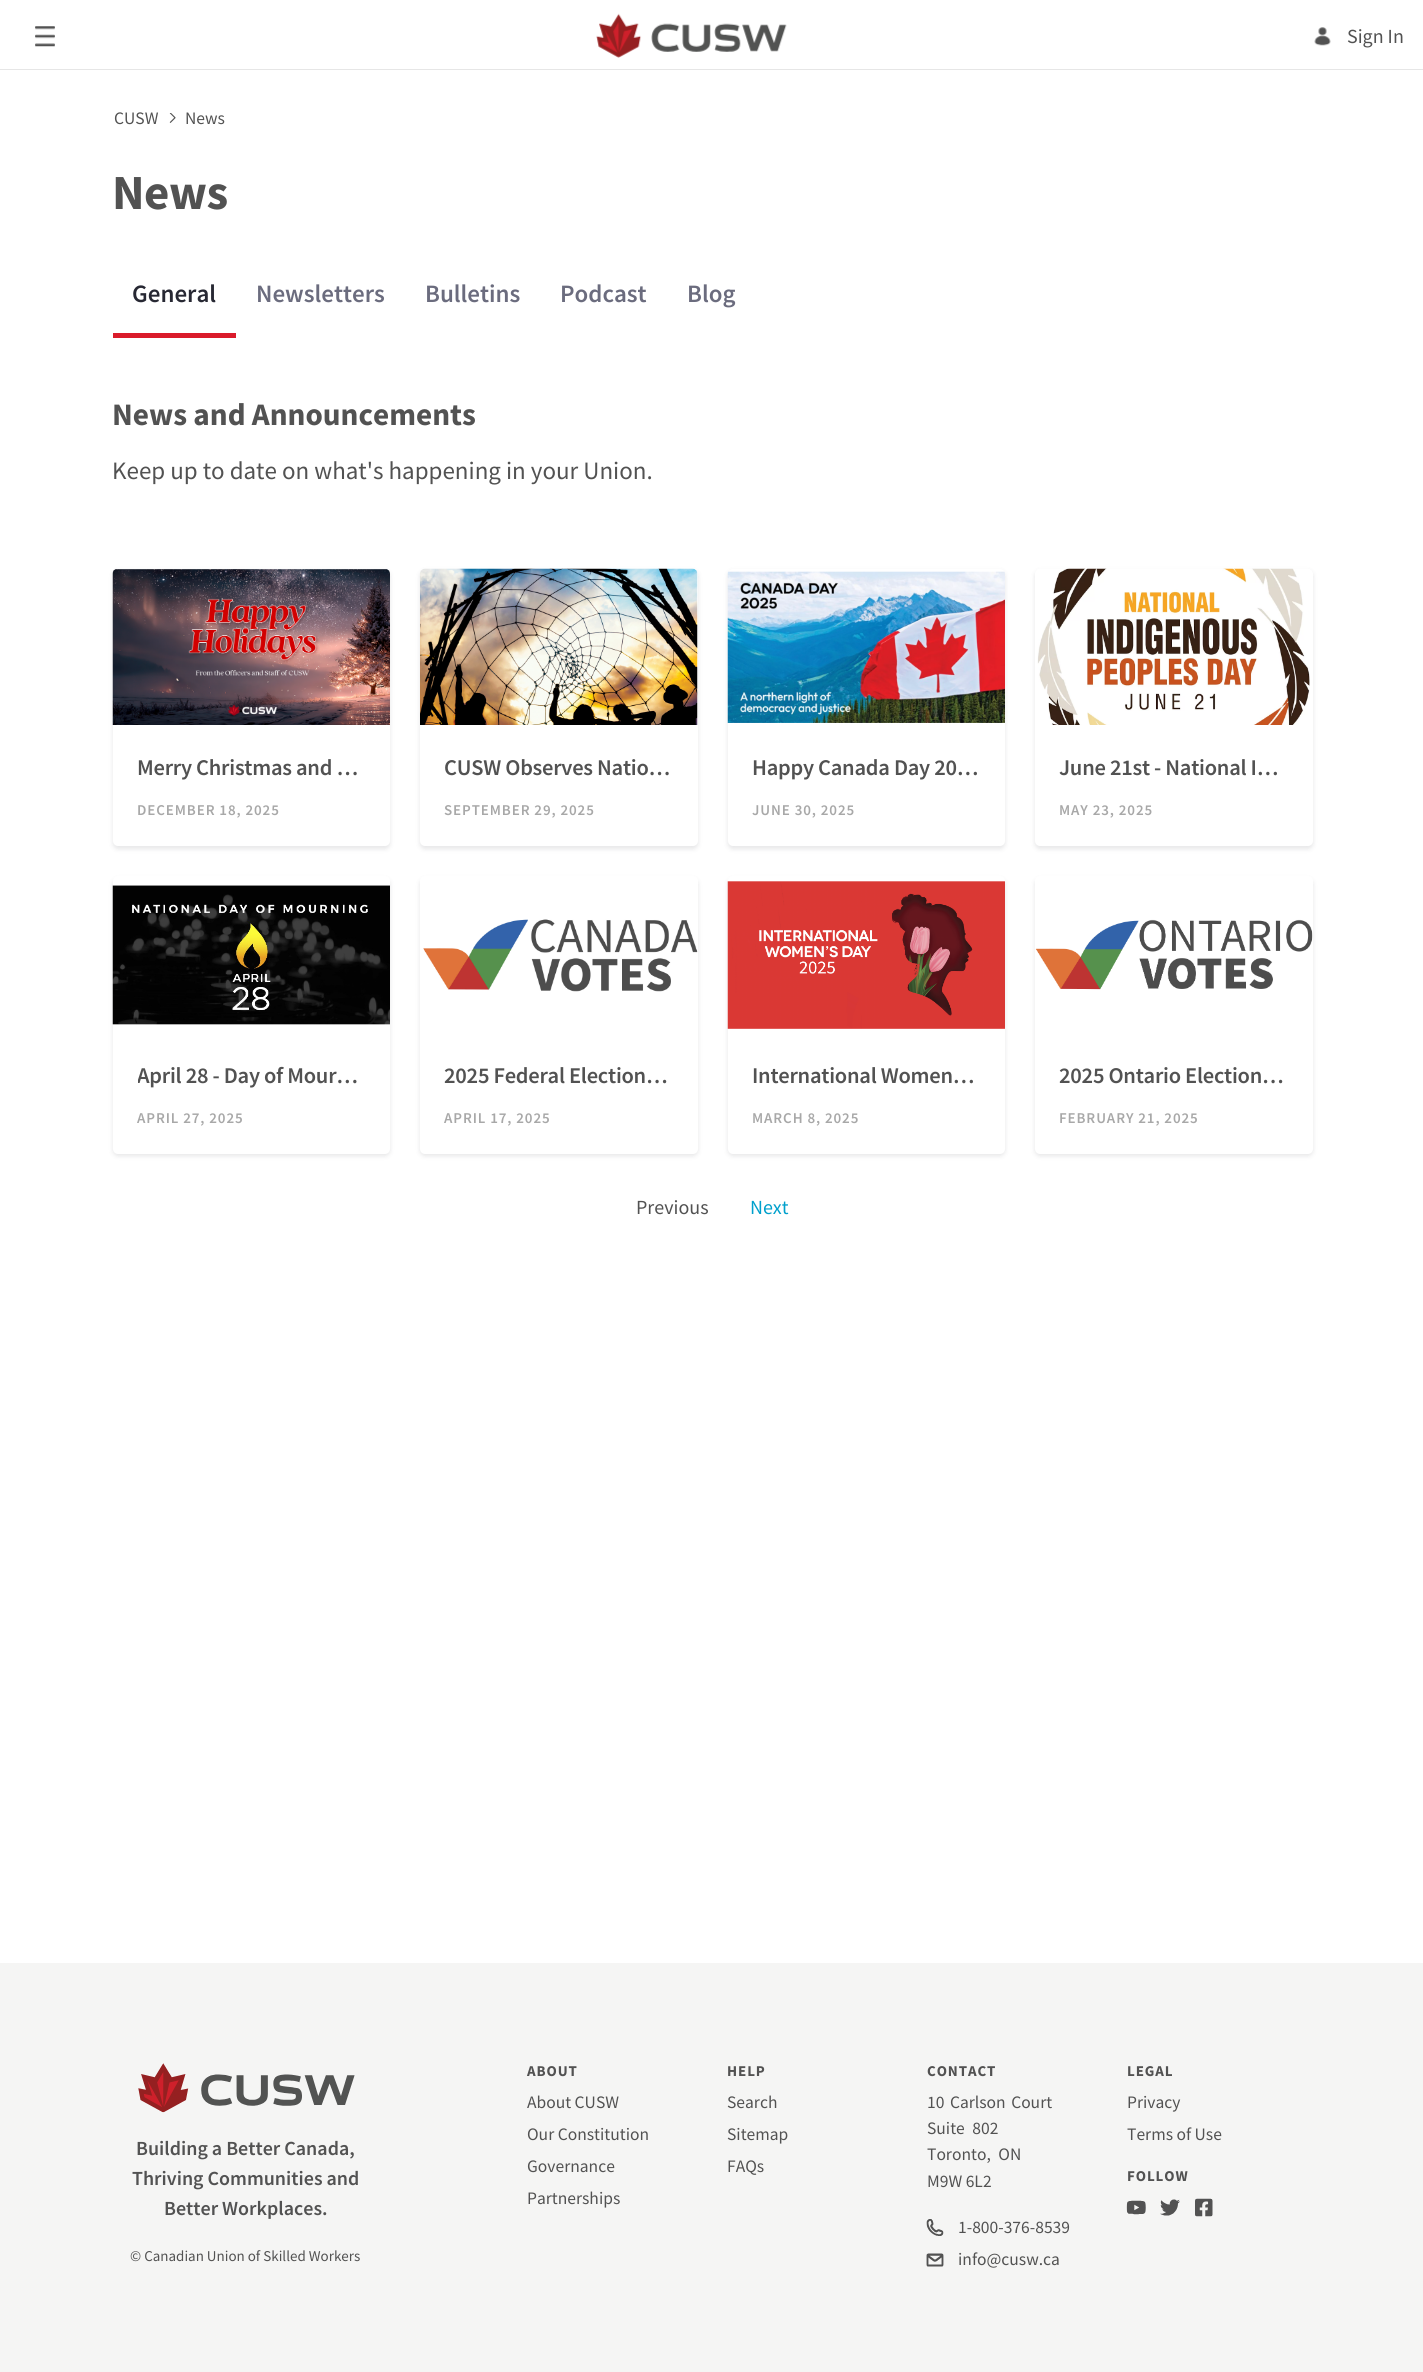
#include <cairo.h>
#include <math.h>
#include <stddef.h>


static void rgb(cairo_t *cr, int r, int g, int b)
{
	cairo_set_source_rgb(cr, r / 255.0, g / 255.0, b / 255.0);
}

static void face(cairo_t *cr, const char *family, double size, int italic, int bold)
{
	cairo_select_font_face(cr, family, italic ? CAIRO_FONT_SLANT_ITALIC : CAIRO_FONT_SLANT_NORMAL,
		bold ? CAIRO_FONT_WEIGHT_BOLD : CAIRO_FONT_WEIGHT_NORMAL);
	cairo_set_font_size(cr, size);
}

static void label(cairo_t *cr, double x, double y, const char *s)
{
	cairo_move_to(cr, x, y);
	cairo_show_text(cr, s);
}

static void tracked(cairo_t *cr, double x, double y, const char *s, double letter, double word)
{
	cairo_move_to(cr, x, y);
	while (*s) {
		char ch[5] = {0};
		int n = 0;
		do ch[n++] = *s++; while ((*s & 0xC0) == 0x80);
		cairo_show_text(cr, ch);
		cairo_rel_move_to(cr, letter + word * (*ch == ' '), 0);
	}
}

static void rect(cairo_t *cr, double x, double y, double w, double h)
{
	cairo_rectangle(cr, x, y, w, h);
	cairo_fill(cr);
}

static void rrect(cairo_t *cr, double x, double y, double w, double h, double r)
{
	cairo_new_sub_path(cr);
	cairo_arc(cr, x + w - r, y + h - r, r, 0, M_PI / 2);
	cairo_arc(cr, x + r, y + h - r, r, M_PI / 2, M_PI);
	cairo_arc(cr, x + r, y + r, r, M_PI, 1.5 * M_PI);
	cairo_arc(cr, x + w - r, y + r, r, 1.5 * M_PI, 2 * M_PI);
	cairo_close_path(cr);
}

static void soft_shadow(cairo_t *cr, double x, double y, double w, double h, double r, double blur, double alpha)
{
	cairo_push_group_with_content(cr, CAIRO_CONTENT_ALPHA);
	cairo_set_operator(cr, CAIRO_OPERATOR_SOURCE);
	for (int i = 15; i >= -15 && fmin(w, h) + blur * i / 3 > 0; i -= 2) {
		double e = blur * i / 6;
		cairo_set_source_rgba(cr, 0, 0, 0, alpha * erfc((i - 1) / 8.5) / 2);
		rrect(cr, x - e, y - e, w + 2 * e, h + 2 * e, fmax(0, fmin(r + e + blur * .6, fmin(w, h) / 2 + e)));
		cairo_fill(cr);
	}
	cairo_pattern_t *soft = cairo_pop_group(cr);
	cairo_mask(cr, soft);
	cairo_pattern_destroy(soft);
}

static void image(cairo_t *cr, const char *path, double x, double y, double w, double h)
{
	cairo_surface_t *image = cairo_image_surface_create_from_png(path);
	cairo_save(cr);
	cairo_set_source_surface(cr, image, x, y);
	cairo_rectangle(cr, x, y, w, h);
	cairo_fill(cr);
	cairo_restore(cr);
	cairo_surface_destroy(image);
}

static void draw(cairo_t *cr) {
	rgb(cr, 255, 255, 255);
	cairo_paint(cr);
	rgb(cr, 230, 230, 230);
	rect(cr, 0, 69, 1423, 1);
	image(cr, "image0.png", 35, 26, 20, 21);
	image(cr, "image1.png", 596, 13, 191, 45);
	image(cr, "image2.png", 1314, 27, 17, 19);
	face(cr, "Source Sans Pro", 20, 0, 0);
	rgb(cr, 82, 82, 82);
	label(cr, 1347, 43, "Sign In");
	face(cr, "Source Sans Pro", 17.5, 0, 0);
	label(cr, 114, 124, "CUSW");
	image(cr, "image3.png", 169, 113, 7, 10);
	label(cr, 185, 124, "News");
	face(cr, "Source Sans Pro", 49, 0, 1);
	tracked(cr, 112, 209, "News", -0.5, 0);
	face(cr, "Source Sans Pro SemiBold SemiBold", 25, 0, 0);
	rgb(cr, 39, 40, 51);
	label(cr, 132, 302, "General");
	rgb(cr, 218, 27, 43);
	rect(cr, 113, 333, 123, 5);
	rgb(cr, 107, 108, 126);
	label(cr, 256, 302, "Newsletters");
	label(cr, 425, 302, "Bulletins");
	label(cr, 560, 302, "Podcast");
	label(cr, 687, 302, "Blog");
	face(cr, "Source Sans Pro", 31.25, 0, 1);
	rgb(cr, 82, 82, 82);
	label(cr, 112, 425, "News and Announcements");
	face(cr, "Source Sans Pro", 25, 0, 0);
	label(cr, 112, 479, "Keep up to date on what's happening in your Union.");
	rgb(cr, 39, 40, 51);
	soft_shadow(cr, 113, 571, 277, 278, 5, 2.5, 0.12);
	rgb(cr, 255, 255, 255);
	rrect(cr, 113, 569, 277, 277, 5);
	cairo_fill(cr);
	image(cr, "image4.png", 112, 569, 278, 156);
	face(cr, "Source Sans Pro SemiBold SemiBold", 22.5, 0, 0);
	rgb(cr, 82, 82, 82);
	tracked(cr, 137, 775, "Merry Christmas and …", -0.25, 0);
	face(cr, "Source Sans Pro SemiBold SemiBold", 15, 0, 0);
	rgb(cr, 168, 168, 168);
	tracked(cr, 137, 815, "DECEMBER 18, 2025", 0.9, 0);
	rgb(cr, 39, 40, 51);
	soft_shadow(cr, 420, 571, 278, 278, 5, 2.5, 0.12);
	rgb(cr, 255, 255, 255);
	rrect(cr, 420, 569, 278, 277, 5);
	cairo_fill(cr);
	image(cr, "image5.png", 420, 568, 278, 157);
	face(cr, "Source Sans Pro SemiBold SemiBold", 22.5, 0, 0);
	rgb(cr, 82, 82, 82);
	tracked(cr, 444, 775, "CUSW Observes Natio…", -0.25, 0);
	face(cr, "Source Sans Pro SemiBold SemiBold", 15, 0, 0);
	rgb(cr, 168, 168, 168);
	tracked(cr, 444, 815, "SEPTEMBER 29, 2025", 0.9, 0);
	rgb(cr, 39, 40, 51);
	soft_shadow(cr, 728, 571, 277, 278, 5, 2.5, 0.12);
	rgb(cr, 255, 255, 255);
	rrect(cr, 728, 569, 277, 277, 5);
	cairo_fill(cr);
	image(cr, "image6.png", 727, 571, 278, 152);
	face(cr, "Source Sans Pro SemiBold SemiBold", 22.5, 0, 0);
	rgb(cr, 82, 82, 82);
	tracked(cr, 752, 775, "Happy Canada Day 20…", -0.25, 0);
	face(cr, "Source Sans Pro SemiBold SemiBold", 15, 0, 0);
	rgb(cr, 168, 168, 168);
	tracked(cr, 752, 815, "JUNE 30, 2025", 0.9, 0);
	rgb(cr, 39, 40, 51);
	soft_shadow(cr, 1035, 571, 278, 278, 5, 2.5, 0.12);
	rgb(cr, 255, 255, 255);
	rrect(cr, 1035, 569, 278, 277, 5);
	cairo_fill(cr);
	image(cr, "image7.png", 1037, 568, 273, 157);
	face(cr, "Source Sans Pro SemiBold SemiBold", 22.5, 0, 0);
	rgb(cr, 82, 82, 82);
	tracked(cr, 1059, 775, "June 21st - National I…", -0.25, 0);
	face(cr, "Source Sans Pro SemiBold SemiBold", 15, 0, 0);
	rgb(cr, 168, 168, 168);
	tracked(cr, 1059, 815, "MAY 23, 2025", 0.9, 0);
	rgb(cr, 39, 40, 51);
	soft_shadow(cr, 113, 879, 277, 277, 5, 2.5, 0.12);
	rgb(cr, 255, 255, 255);
	rrect(cr, 113, 876, 277, 278, 5);
	cairo_fill(cr);
	image(cr, "image8.png", 112, 885, 278, 140);
	cairo_save(cr);
	cairo_rectangle(cr, 138, 1058, 227, 33);
	cairo_clip(cr);
	face(cr, "Source Sans Pro SemiBold SemiBold", 22.5, 0, 0);
	rgb(cr, 82, 82, 82);
	tracked(cr, 137, 1083, "April 28 - Day of Mour…", -0.25, 0);
	cairo_restore(cr);
	rgb(cr, 168, 168, 168);
	tracked(cr, 137, 1123, "APRIL 27, 2025", 0.9, 0);
	rgb(cr, 39, 40, 51);
	soft_shadow(cr, 420, 879, 278, 277, 5, 2.5, 0.12);
	rgb(cr, 255, 255, 255);
	rrect(cr, 420, 876, 278, 278, 5);
	cairo_fill(cr);
	image(cr, "image9.png", 423, 919, 275, 73);
	face(cr, "Source Sans Pro SemiBold SemiBold", 22.5, 0, 0);
	rgb(cr, 82, 82, 82);
	tracked(cr, 444, 1083, "2025 Federal Election…", -0.25, 0);
	face(cr, "Source Sans Pro SemiBold SemiBold", 15, 0, 0);
	rgb(cr, 168, 168, 168);
	tracked(cr, 444, 1123, "APRIL 17, 2025", 0.9, 0);
	rgb(cr, 39, 40, 51);
	soft_shadow(cr, 728, 879, 277, 277, 5, 2.5, 0.12);
	rgb(cr, 255, 255, 255);
	rrect(cr, 728, 876, 277, 278, 5);
	cairo_fill(cr);
	image(cr, "image10.png", 727, 881, 278, 148);
	face(cr, "Source Sans Pro SemiBold SemiBold", 22.5, 0, 0);
	rgb(cr, 82, 82, 82);
	tracked(cr, 752, 1083, "International Women…", -0.25, 0);
	face(cr, "Source Sans Pro SemiBold SemiBold", 15, 0, 0);
	rgb(cr, 168, 168, 168);
	tracked(cr, 752, 1123, "MARCH 8, 2025", 0.9, 0);
	rgb(cr, 39, 40, 51);
	soft_shadow(cr, 1035, 879, 278, 277, 5, 2.5, 0.12);
	rgb(cr, 255, 255, 255);
	rrect(cr, 1035, 876, 278, 278, 5);
	cairo_fill(cr);
	image(cr, "image11.png", 1035, 919, 278, 71);
	face(cr, "Source Sans Pro SemiBold SemiBold", 22.5, 0, 0);
	rgb(cr, 82, 82, 82);
	tracked(cr, 1059, 1083, "2025 Ontario Election…", -0.25, 0);
	face(cr, "Source Sans Pro SemiBold SemiBold", 15, 0, 0);
	rgb(cr, 168, 168, 168);
	tracked(cr, 1059, 1123, "FEBRUARY 21, 2025", 0.9, 0);
	face(cr, "Source Sans Pro", 20, 0, 0);
	rgb(cr, 82, 82, 82);
	label(cr, 636, 1214, "Previous");
	rgb(cr, 0, 160, 204);
	label(cr, 750, 1214, "Next");
	rgb(cr, 245, 245, 244);
	rect(cr, 0, 1963, 1423, 409);
	image(cr, "image12.png", 138, 2063, 217, 50);
	face(cr, "Source Sans Pro SemiBold SemiBold", 20, 0, 0);
	rgb(cr, 82, 82, 82);
	label(cr, 136, 2155, "Building a Better Canada,");
	label(cr, 132, 2185, "Thriving Communities and");
	label(cr, 164, 2215, "Better Workplaces.");
	face(cr, "Source Sans Pro", 15, 0, 0);
	label(cr, 130, 2261, "© Canadian Union of Skilled Workers");
	face(cr, "Source Sans Pro", 15, 0, 1);
	tracked(cr, 527, 2076, "ABOUT", 0.9, 0);
	face(cr, "Source Sans Pro", 17.5, 0, 0);
	label(cr, 527, 2108, "About CUSW");
	label(cr, 527, 2140, "Our Constitution");
	label(cr, 527, 2172, "Governance");
	label(cr, 527, 2204, "Partnerships");
	face(cr, "Source Sans Pro", 15, 0, 1);
	tracked(cr, 727, 2076, "HELP", 0.9, 0);
	face(cr, "Source Sans Pro", 17.5, 0, 0);
	label(cr, 727, 2108, "Search");
	label(cr, 727, 2140, "Sitemap");
	label(cr, 727, 2172, "FAQs");
	face(cr, "Source Sans Pro", 15, 0, 1);
	tracked(cr, 927, 2076, "CONTACT", 0.9, 0);
	face(cr, "Source Sans Pro", 17.5, 0, 0);
	tracked(cr, 927, 2108, "10 Carlson Court", 0, 2);
	tracked(cr, 927, 2134, "Suite 802", 0, 4);
	tracked(cr, 927, 2160, "Toronto, ON", 0, 4);
	label(cr, 927, 2187, "M9W 6L2");
	image(cr, "image13.png", 926, 2219, 18, 17);
	label(cr, 958, 2233, "1-800-376-8539");
	image(cr, "image14.png", 926, 2253, 18, 14);
	label(cr, 958, 2265, "info@cusw.ca");
	face(cr, "Source Sans Pro", 15, 0, 1);
	tracked(cr, 1127, 2076, "LEGAL", 0.9, 0);
	face(cr, "Source Sans Pro", 17.5, 0, 0);
	label(cr, 1127, 2108, "Privacy");
	label(cr, 1127, 2140, "Terms of Use");
	face(cr, "Source Sans Pro", 15, 0, 1);
	tracked(cr, 1127, 2181, "FOLLOW", 0.9, 0);
	image(cr, "image15.png", 1126, 2200, 20, 15);
	image(cr, "image16.png", 1160, 2199, 20, 17);
	image(cr, "image17.png", 1195, 2198, 18, 19);
}

int main(void) {
	cairo_surface_t *surface = cairo_image_surface_create(CAIRO_FORMAT_RGB24, 1423, 2372);
	cairo_t *cr = cairo_create(surface);
	cairo_font_options_t *options = cairo_font_options_create();
	cairo_font_options_set_hint_metrics(options, CAIRO_HINT_METRICS_OFF);
	cairo_font_options_set_hint_style(options, CAIRO_HINT_STYLE_NONE);
	cairo_set_font_options(cr, options);
	cairo_set_miter_limit(cr, 4);
	draw(cr);
	cairo_surface_write_to_png(surface, "render.png");
	cairo_font_options_destroy(options);
	cairo_destroy(cr);
	cairo_surface_destroy(surface);
	return 0;
}
